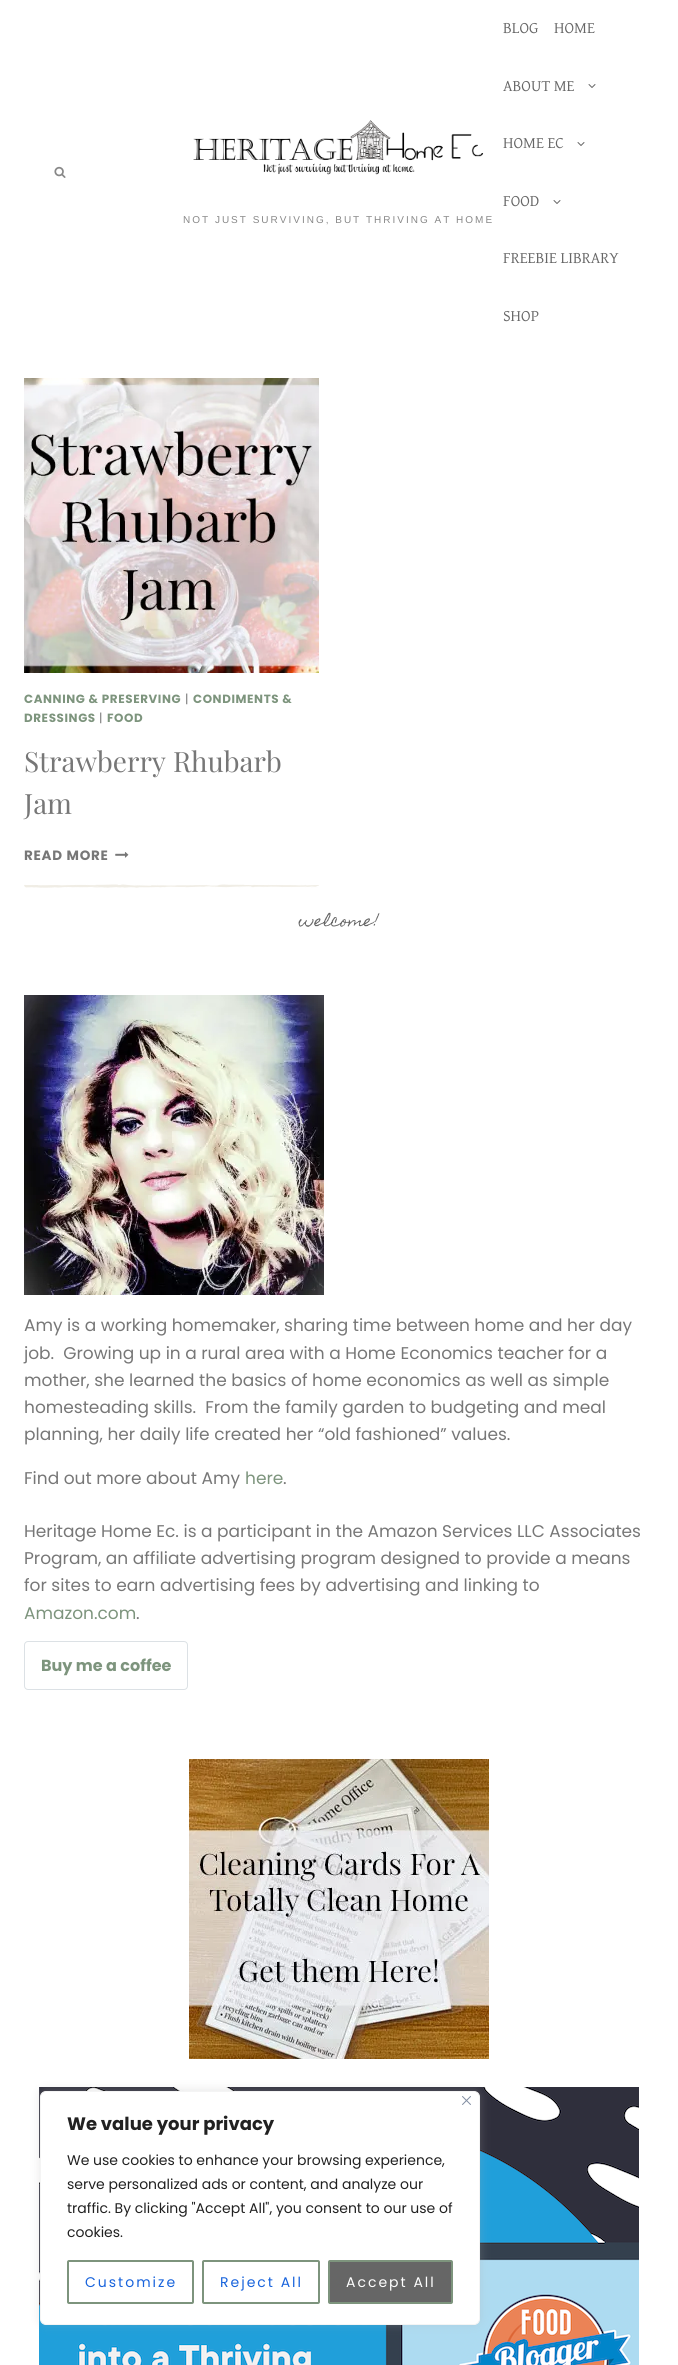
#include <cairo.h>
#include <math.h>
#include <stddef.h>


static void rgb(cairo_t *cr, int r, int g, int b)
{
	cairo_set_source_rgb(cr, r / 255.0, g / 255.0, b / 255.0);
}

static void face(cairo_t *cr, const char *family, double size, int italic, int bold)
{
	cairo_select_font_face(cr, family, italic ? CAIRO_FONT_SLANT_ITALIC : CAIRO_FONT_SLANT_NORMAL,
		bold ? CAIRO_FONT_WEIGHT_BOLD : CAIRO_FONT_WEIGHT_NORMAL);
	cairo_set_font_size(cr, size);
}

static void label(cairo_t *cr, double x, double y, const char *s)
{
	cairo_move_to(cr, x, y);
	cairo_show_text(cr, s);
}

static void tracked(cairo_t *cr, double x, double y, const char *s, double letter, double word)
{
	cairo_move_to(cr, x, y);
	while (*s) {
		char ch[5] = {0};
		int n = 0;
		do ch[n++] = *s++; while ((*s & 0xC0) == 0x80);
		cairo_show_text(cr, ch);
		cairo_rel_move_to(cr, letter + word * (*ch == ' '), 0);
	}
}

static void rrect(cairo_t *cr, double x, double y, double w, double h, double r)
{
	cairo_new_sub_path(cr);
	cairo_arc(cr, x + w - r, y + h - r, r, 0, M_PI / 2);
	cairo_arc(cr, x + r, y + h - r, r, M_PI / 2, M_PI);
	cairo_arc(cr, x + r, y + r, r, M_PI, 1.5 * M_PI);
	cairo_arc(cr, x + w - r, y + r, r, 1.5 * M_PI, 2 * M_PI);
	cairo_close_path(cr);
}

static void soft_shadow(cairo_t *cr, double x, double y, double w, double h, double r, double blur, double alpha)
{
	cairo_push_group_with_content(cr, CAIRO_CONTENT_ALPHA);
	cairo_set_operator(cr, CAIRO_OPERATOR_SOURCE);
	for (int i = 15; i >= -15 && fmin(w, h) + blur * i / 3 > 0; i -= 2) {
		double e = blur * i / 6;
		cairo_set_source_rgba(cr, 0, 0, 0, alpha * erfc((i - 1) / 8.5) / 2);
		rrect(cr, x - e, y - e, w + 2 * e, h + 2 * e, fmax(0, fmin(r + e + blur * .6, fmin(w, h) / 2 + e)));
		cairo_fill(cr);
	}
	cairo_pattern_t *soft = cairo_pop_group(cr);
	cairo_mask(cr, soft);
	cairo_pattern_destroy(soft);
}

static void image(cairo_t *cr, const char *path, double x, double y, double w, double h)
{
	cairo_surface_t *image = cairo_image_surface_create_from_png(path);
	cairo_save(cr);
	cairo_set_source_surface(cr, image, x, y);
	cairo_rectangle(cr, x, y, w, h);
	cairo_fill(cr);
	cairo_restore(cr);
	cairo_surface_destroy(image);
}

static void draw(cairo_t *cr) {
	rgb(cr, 255, 255, 255);
	cairo_paint(cr);
	image(cr, "image0.png", 54, 166, 12, 12);
	face(cr, "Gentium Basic", 16, 0, 0);
	rgb(cr, 102, 102, 102);
	label(cr, 503, 33, "BLOG");
	label(cr, 554, 33, "HOME");
	label(cr, 503, 91, "ABOUT ME");
	image(cr, "image1.png", 588, 84, 8, 4);
	label(cr, 503, 148, "HOME EC");
	image(cr, "image1.png", 577, 142, 8, 4);
	label(cr, 503, 206, "FOOD");
	image(cr, "image1.png", 553, 200, 8, 4);
	label(cr, 503, 263, "FREEBIE LIBRARY");
	label(cr, 503, 321, "SHOP");
	image(cr, "image2.png", 193, 120, 291, 55);
	face(cr, "Liberation Sans", 10, 0, 0);
	rgb(cr, 136, 136, 136);
	tracked(cr, 183, 223, "NOT JUST SURVIVING, BUT THRIVING AT HOME", 2, 0);
	image(cr, "image3.png", 24, 884, 295, 4);
	image(cr, "image4.png", 24, 378, 295, 295);
	face(cr, "Poppins", 11.9, 0, 1);
	rgb(cr, 125, 148, 125);
	tracked(cr, 24, 703, "CANNING & PRESERVING", 0.6, 0);
	face(cr, "Poppins", 11.9, 0, 0);
	rgb(cr, 119, 119, 119);
	tracked(cr, 185, 703, "|", 0.6, 0);
	face(cr, "Poppins", 11.9, 0, 1);
	rgb(cr, 125, 148, 125);
	tracked(cr, 193, 703, "CONDIMENTS &", 0.6, 0);
	tracked(cr, 24, 722, "DRESSINGS", 0.6, 0);
	face(cr, "Poppins", 11.9, 0, 0);
	rgb(cr, 119, 119, 119);
	tracked(cr, 99, 722, "|", 0.6, 0);
	face(cr, "Poppins", 11.9, 0, 1);
	rgb(cr, 125, 148, 125);
	tracked(cr, 107, 722, "FOOD", 0.6, 0);
	face(cr, "Playfair Display", 28, 0, 0);
	rgb(cr, 119, 119, 119);
	label(cr, 24, 772, "Strawberry Rhubarb");
	label(cr, 24, 814, "Jam");
	face(cr, "Poppins", 13.5, 0, 1);
	tracked(cr, 24, 860, "READ MORE", 0.75, 0);
	image(cr, "image5.png", 115, 852, 14, 6);
	face(cr, "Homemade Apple", 15, 0, 0);
	rgb(cr, 102, 102, 102);
	label(cr, 299, 926, "welcome!");
	image(cr, "image6.png", 24, 995, 300, 300);
	face(cr, "Poppins", 17, 0, 0);
	rgb(cr, 119, 119, 119);
	label(cr, 24, 1331, "Amy is a working homemaker, sharing time between home and her day");
	label(cr, 24, 1359, "job.  Growing up in a rural area with a Home Economics teacher for a");
	label(cr, 24, 1386, "mother, she learned the basics of home economics as well as simple");
	label(cr, 24, 1413, "homesteading skills.  From the family garden to budgeting and meal");
	label(cr, 24, 1440, "planning, her daily life created her “old fashioned” values.");
	label(cr, 24, 1484, "Find out more about Amy");
	rgb(cr, 125, 148, 125);
	label(cr, 245, 1484, "here");
	rgb(cr, 119, 119, 119);
	label(cr, 283, 1484, ".");
	label(cr, 24, 1537, "Heritage Home Ec. is a participant in the Amazon Services LLC Associates");
	label(cr, 24, 1564, "Program, an affiliate advertising program designed to provide a means");
	label(cr, 24, 1591, "for sites to earn advertising fees by advertising and linking to");
	rgb(cr, 125, 148, 125);
	label(cr, 24, 1619, "Amazon.com");
	rgb(cr, 119, 119, 119);
	label(cr, 136, 1619, ".");
	rrect(cr, 24.5, 1641.5, 163, 48, 3.5);
	rgb(cr, 220, 225, 229);
	cairo_set_line_width(cr, 1);
	cairo_stroke(cr);
	face(cr, "Poppins", 16, 0, 1);
	rgb(cr, 125, 148, 125);
	label(cr, 41, 1671, "Buy me a coffee");
	image(cr, "image7.png", 189, 1759, 300, 300);
	image(cr, "image8.png", 39, 2087, 600, 278);
	rgb(cr, 172, 171, 171);
	soft_shadow(cr, 40, 2090, 440, 234, 6, 5, 0.3);
	rgb(cr, 255, 255, 255);
	rrect(cr, 40.5, 2091.5, 439, 233, 5.5);
	cairo_fill_preserve(cr);
	rgb(cr, 244, 244, 244);
	cairo_stroke(cr);
	image(cr, "image9.png", 462, 2096, 9, 9);
	face(cr, "Poppins", 18, 0, 1);
	rgb(cr, 33, 33, 33);
	label(cr, 67, 2130, "We value your privacy");
	face(cr, "Poppins", 14, 0, 0);
	label(cr, 67, 2165, "We use cookies to enhance your browsing experience,");
	label(cr, 67, 2189, "serve personalized ads or content, and analyze our");
	label(cr, 67, 2213, "traffic. By clicking \"Accept All\", you consent to our use of");
	label(cr, 67, 2237, "cookies.");
	rrect(cr, 68, 2261, 125, 42, 1);
	rgb(cr, 125, 148, 125);
	cairo_set_line_width(cr, 2);
	cairo_stroke(cr);
	rgb(cr, 24, 99, 220);
	tracked(cr, 85, 2287, "Customize", 2, 0);
	rrect(cr, 203, 2261, 116, 42, 1);
	rgb(cr, 125, 148, 125);
	cairo_stroke(cr);
	rgb(cr, 24, 99, 220);
	tracked(cr, 220, 2287, "Reject All", 2, 0);
	rgb(cr, 102, 102, 102);
	rrect(cr, 329, 2261, 123, 42, 1);
	cairo_fill_preserve(cr);
	rgb(cr, 125, 148, 125);
	cairo_stroke(cr);
	rgb(cr, 255, 255, 255);
	tracked(cr, 346, 2287, "Accept All", 2, 0);
}

int main(void) {
	cairo_surface_t *surface = cairo_image_surface_create(CAIRO_FORMAT_RGB24, 678, 2365);
	cairo_t *cr = cairo_create(surface);
	cairo_font_options_t *options = cairo_font_options_create();
	cairo_font_options_set_hint_metrics(options, CAIRO_HINT_METRICS_OFF);
	cairo_font_options_set_hint_style(options, CAIRO_HINT_STYLE_NONE);
	cairo_set_font_options(cr, options);
	cairo_set_miter_limit(cr, 4);
	draw(cr);
	cairo_surface_write_to_png(surface, "render.png");
	cairo_font_options_destroy(options);
	cairo_destroy(cr);
	cairo_surface_destroy(surface);
	return 0;
}
